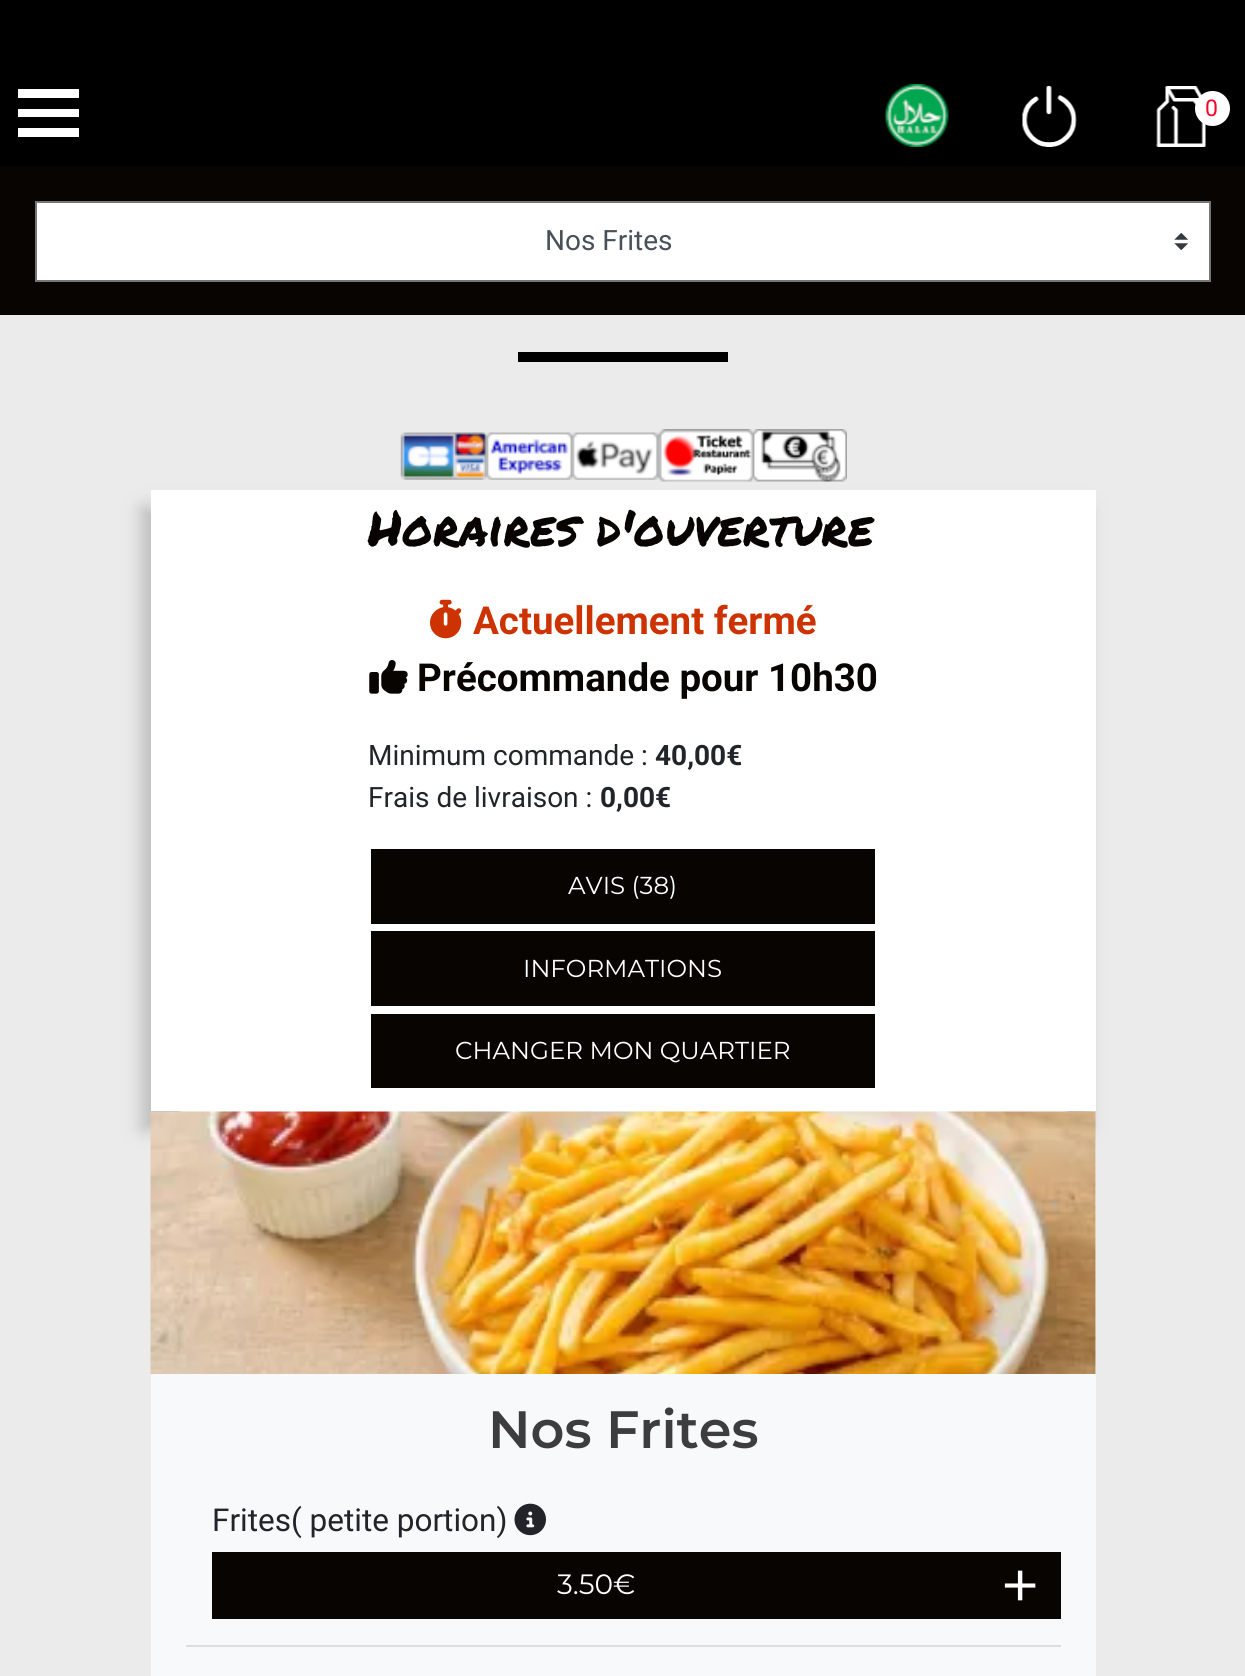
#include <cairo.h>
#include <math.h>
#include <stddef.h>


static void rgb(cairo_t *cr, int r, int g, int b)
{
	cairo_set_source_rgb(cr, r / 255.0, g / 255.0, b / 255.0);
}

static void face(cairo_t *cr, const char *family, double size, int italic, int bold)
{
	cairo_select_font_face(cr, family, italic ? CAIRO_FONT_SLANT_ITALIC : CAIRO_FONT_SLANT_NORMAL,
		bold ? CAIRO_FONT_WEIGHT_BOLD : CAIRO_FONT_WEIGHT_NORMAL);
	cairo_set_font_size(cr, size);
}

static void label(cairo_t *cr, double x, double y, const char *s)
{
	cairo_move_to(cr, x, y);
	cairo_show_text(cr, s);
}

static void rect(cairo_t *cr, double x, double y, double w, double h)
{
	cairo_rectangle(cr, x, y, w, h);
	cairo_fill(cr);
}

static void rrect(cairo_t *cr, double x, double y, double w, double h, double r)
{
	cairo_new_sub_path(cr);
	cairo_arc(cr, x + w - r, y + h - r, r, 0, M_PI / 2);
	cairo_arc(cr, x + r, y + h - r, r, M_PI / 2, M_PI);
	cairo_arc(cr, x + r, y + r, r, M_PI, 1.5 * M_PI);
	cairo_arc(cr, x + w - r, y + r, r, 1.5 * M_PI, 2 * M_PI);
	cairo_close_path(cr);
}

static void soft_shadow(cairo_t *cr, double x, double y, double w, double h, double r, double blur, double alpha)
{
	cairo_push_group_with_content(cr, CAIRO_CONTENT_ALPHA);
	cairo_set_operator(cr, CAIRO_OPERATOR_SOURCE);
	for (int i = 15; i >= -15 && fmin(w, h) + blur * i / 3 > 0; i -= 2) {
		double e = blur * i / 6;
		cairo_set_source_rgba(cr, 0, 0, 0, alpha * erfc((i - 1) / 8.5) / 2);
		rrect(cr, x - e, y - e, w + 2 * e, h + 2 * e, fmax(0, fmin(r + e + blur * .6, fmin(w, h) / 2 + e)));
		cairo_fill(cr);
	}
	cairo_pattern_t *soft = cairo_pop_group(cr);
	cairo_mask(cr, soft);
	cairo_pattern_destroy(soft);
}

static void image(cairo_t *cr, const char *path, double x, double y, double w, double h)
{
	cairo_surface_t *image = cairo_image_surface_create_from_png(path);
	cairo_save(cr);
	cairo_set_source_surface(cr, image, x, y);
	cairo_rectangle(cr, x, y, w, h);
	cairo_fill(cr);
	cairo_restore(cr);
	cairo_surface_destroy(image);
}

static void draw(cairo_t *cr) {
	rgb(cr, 235, 235, 235);
	cairo_paint(cr);
	rgb(cr, 0, 0, 0);
	rect(cr, 0, 0, 1245, 61);
	rgb(cr, 0, 1, 1);
	soft_shadow(cr, 0, 61, 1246, 105, 0, 9, 0.27);
	rgb(cr, 0, 0, 0);
	rect(cr, 0, 61, 1245, 105);
	rgb(cr, 255, 255, 255);
	rect(cr, 18, 89, 61, 9);
	rect(cr, 18, 109, 61, 8);
	rect(cr, 18, 128, 61, 9);
	image(cr, "image0.png", 885, 84, 64, 63);
	image(cr, "image1.png", 1022, 86, 55, 61);
	image(cr, "image2.png", 1156, 86, 50, 61);
	cairo_arc(cr, 1212.5, 108.5, 17.5, 0, 2 * M_PI);
	cairo_fill(cr);
	face(cr, "Roboto", 23, 0, 0);
	rgb(cr, 255, 0, 42);
	label(cr, 1205, 116, "0");
	rgb(cr, 8, 4, 1);
	rect(cr, 0, 166, 1245, 149);
	rgb(cr, 255, 255, 255);
	rect(cr, 37, 203, 1172, 77);
	image(cr, "image3.png", 1174, 233, 14, 17);
	cairo_rectangle(cr, 36, 202, 1174, 79);
	rgb(cr, 118, 118, 118);
	cairo_stroke(cr);
	face(cr, "Roboto", 28, 0, 0);
	rgb(cr, 73, 80, 87);
	label(cr, 545, 250, "Nos Frites");
	rgb(cr, 0, 0, 0);
	rect(cr, 518, 352, 210, 10);
	image(cr, "image4.png", 400, 432, 87, 48);
	image(cr, "image5.png", 486, 432, 87, 48);
	image(cr, "image6.png", 572, 432, 86, 48);
	rgb(cr, 188, 187, 187);
	soft_shadow(cr, 142, 508, 945, 621, 0, 9, 1);
	image(cr, "image7.png", 658, 429, 95, 53);
	image(cr, "image8.png", 752, 429, 95, 53);
	rgb(cr, 255, 255, 255);
	rect(cr, 151, 490, 945, 621);
	face(cr, "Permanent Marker", 49, 0, 0);
	rgb(cr, 8, 4, 1);
	label(cr, 368, 546, "Horaires d'ouverture");
	image(cr, "image9.png", 430, 599, 32, 40);
	face(cr, "Roboto", 38.5, 0, 1);
	rgb(cr, 204, 51, 0);
	label(cr, 473, 634, "Actuellement fermé");
	image(cr, "image10.png", 369, 660, 39, 34);
	rgb(cr, 8, 4, 1);
	label(cr, 417, 691, "Précommande pour 10h30");
	face(cr, "Roboto", 28, 0, 0);
	rgb(cr, 33, 37, 41);
	label(cr, 368, 765, "Minimum commande :");
	face(cr, "Roboto", 28, 0, 1);
	label(cr, 655, 765, "40,00€");
	face(cr, "Roboto", 28, 0, 0);
	label(cr, 368, 807, "Frais de livraison :");
	face(cr, "Roboto", 28, 0, 1);
	label(cr, 600, 807, "0,00€");
	rgb(cr, 8, 4, 1);
	rect(cr, 371, 849, 504, 75);
	face(cr, "Montserrat", 24.5, 0, 0);
	rgb(cr, 255, 255, 255);
	label(cr, 568, 894, "AVIS (38)");
	rgb(cr, 8, 4, 1);
	rect(cr, 371, 931, 504, 75);
	rgb(cr, 255, 255, 255);
	label(cr, 523, 977, "INFORMATIONS");
	rgb(cr, 8, 4, 1);
	rect(cr, 371, 1014, 504, 74);
	rgb(cr, 255, 255, 255);
	label(cr, 455, 1059, "CHANGER MON QUARTIER");
	rgb(cr, 248, 249, 250);
	rrect(cr, 151, 1111, 945, 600, 35);
	cairo_fill(cr);
	image(cr, "image11.png", 150, 1111, 946, 263);
	face(cr, "Montserrat SemiBold", 52.5, 0, 0);
	rgb(cr, 61, 60, 63);
	label(cr, 488, 1448, "Nos Frites");
	rgb(cr, 221, 221, 221);
	rect(cr, 186, 1645, 875, 2);
	face(cr, "Roboto", 31.5, 0, 0);
	rgb(cr, 33, 37, 41);
	label(cr, 212, 1531, "Frites( petite portion)");
	image(cr, "image12.png", 514, 1503, 32, 33);
	rgb(cr, 8, 4, 1);
	rect(cr, 212, 1552, 849, 67);
	face(cr, "Montserrat", 28, 0, 0);
	rgb(cr, 255, 255, 255);
	label(cr, 557, 1594, "3.50€");
	face(cr, "Montserrat", 70, 0, 0);
	label(cr, 1000, 1610, "+");
}

int main(void) {
	cairo_surface_t *surface = cairo_image_surface_create(CAIRO_FORMAT_RGB24, 1245, 1676);
	cairo_t *cr = cairo_create(surface);
	cairo_font_options_t *options = cairo_font_options_create();
	cairo_font_options_set_hint_metrics(options, CAIRO_HINT_METRICS_OFF);
	cairo_font_options_set_hint_style(options, CAIRO_HINT_STYLE_NONE);
	cairo_set_font_options(cr, options);
	cairo_set_miter_limit(cr, 4);
	draw(cr);
	cairo_surface_write_to_png(surface, "render.png");
	cairo_font_options_destroy(options);
	cairo_destroy(cr);
	cairo_surface_destroy(surface);
	return 0;
}
